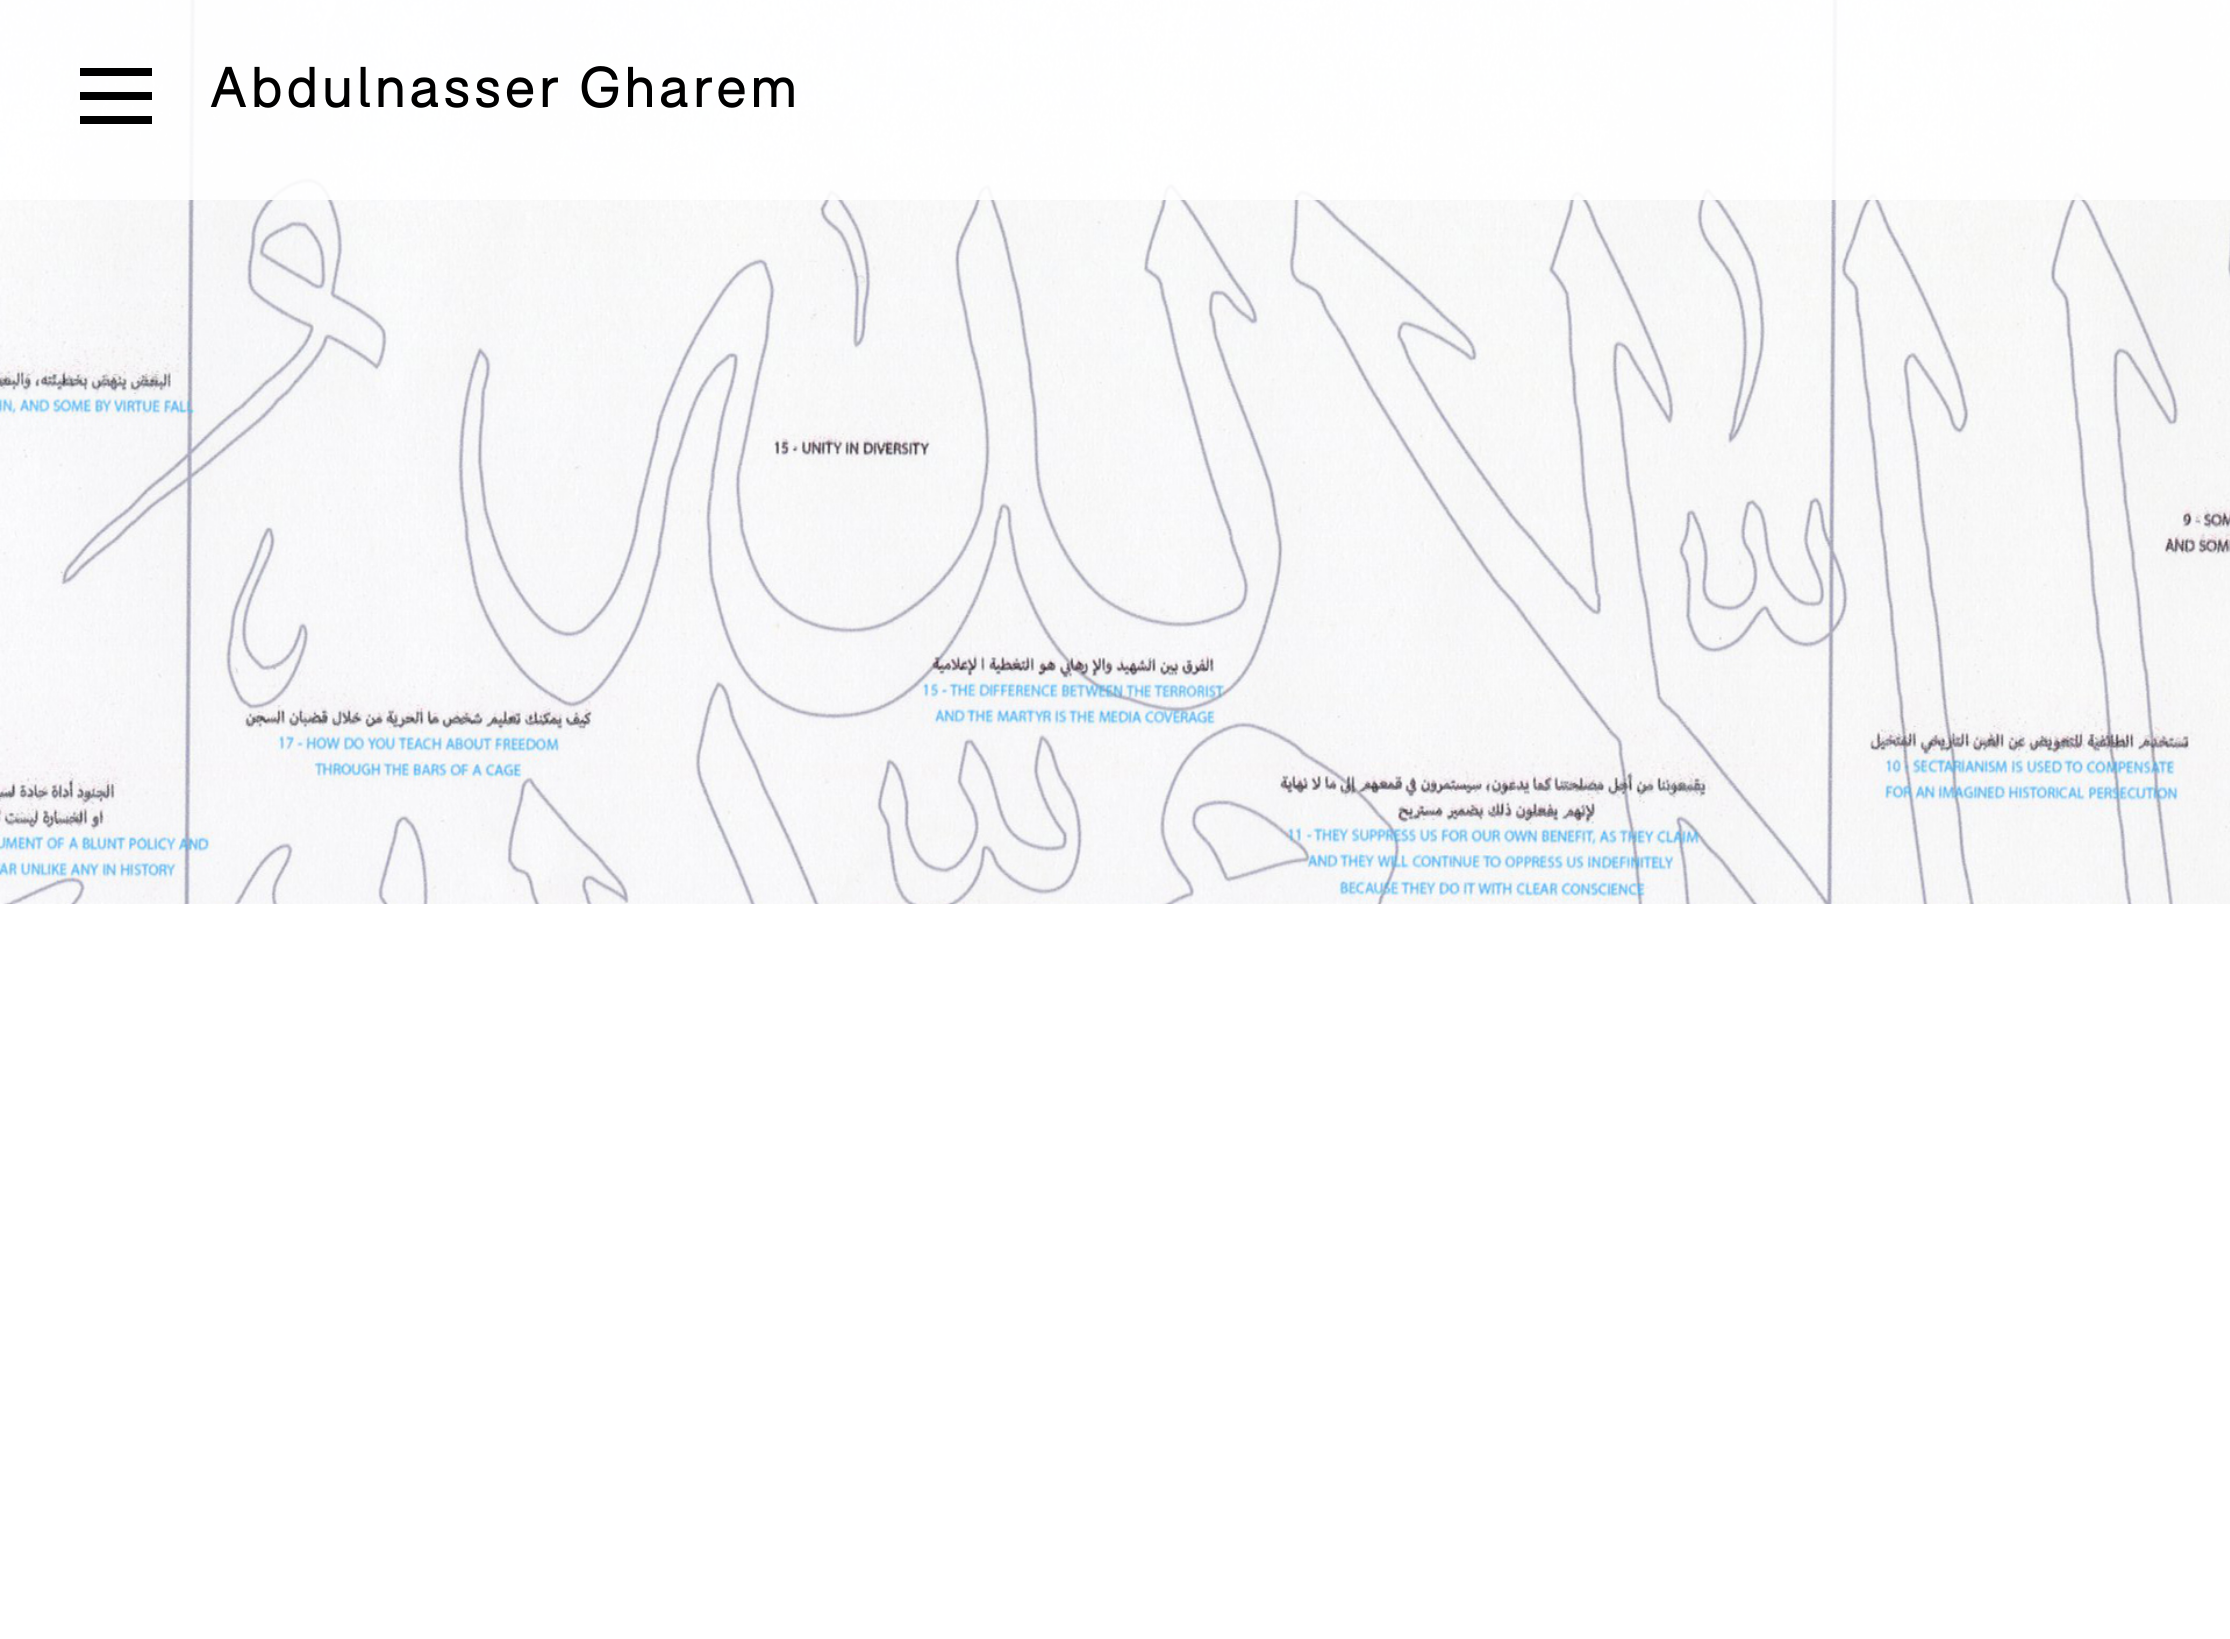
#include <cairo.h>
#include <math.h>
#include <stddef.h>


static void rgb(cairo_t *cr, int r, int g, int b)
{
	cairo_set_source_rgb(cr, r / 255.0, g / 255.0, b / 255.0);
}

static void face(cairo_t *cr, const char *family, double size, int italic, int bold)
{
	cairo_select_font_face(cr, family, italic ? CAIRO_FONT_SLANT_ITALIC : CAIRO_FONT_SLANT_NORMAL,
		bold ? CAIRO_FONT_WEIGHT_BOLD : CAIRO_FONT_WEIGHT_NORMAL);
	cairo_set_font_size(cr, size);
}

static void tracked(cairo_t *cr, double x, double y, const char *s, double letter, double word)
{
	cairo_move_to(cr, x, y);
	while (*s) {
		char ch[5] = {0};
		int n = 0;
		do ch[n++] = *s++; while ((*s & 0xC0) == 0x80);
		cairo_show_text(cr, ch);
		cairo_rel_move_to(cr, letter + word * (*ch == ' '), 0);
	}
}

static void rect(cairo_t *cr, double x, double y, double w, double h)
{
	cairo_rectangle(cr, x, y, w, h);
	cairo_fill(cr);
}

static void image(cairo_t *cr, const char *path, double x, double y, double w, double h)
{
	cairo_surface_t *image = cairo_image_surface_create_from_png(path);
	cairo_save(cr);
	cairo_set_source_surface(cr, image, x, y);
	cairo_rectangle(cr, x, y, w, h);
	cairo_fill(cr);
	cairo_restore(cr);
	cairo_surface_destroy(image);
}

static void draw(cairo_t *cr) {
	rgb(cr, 255, 255, 255);
	cairo_paint(cr);
	image(cr, "image0.png", 0, 0, 2230, 904);
	cairo_set_source_rgba(cr, 1, 1, 1, 0.9);
	rect(cr, 0, 0, 2230, 200);
	rgb(cr, 0, 0, 0);
	rect(cr, 80, 92, 72, 8);
	rect(cr, 80, 68, 72, 8);
	rect(cr, 80, 116, 72, 8);
	face(cr, "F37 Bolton", 56, 0, 0);
	tracked(cr, 210, 107, "Abdulnasser Gharem", 3.4, 0);
}

int main(void) {
	cairo_surface_t *surface = cairo_image_surface_create(CAIRO_FORMAT_RGB24, 2230, 1639);
	cairo_t *cr = cairo_create(surface);
	cairo_font_options_t *options = cairo_font_options_create();
	cairo_font_options_set_hint_metrics(options, CAIRO_HINT_METRICS_OFF);
	cairo_font_options_set_hint_style(options, CAIRO_HINT_STYLE_NONE);
	cairo_set_font_options(cr, options);
	cairo_set_miter_limit(cr, 4);
	draw(cr);
	cairo_surface_write_to_png(surface, "render.png");
	cairo_font_options_destroy(options);
	cairo_destroy(cr);
	cairo_surface_destroy(surface);
	return 0;
}
